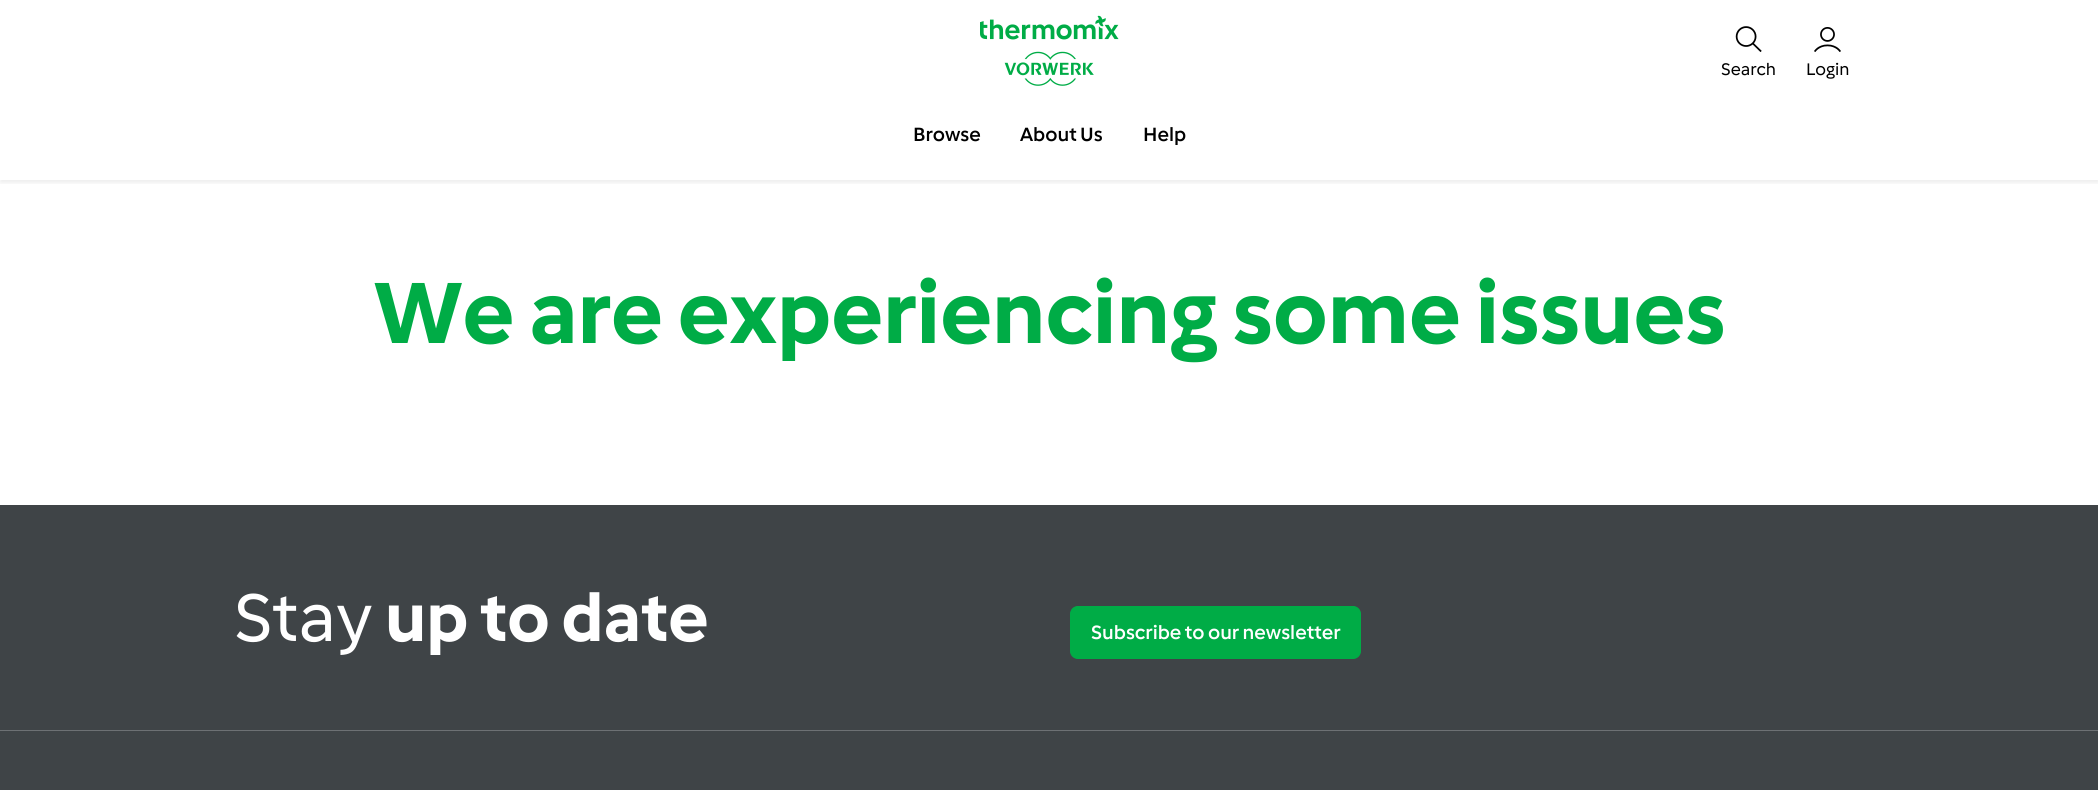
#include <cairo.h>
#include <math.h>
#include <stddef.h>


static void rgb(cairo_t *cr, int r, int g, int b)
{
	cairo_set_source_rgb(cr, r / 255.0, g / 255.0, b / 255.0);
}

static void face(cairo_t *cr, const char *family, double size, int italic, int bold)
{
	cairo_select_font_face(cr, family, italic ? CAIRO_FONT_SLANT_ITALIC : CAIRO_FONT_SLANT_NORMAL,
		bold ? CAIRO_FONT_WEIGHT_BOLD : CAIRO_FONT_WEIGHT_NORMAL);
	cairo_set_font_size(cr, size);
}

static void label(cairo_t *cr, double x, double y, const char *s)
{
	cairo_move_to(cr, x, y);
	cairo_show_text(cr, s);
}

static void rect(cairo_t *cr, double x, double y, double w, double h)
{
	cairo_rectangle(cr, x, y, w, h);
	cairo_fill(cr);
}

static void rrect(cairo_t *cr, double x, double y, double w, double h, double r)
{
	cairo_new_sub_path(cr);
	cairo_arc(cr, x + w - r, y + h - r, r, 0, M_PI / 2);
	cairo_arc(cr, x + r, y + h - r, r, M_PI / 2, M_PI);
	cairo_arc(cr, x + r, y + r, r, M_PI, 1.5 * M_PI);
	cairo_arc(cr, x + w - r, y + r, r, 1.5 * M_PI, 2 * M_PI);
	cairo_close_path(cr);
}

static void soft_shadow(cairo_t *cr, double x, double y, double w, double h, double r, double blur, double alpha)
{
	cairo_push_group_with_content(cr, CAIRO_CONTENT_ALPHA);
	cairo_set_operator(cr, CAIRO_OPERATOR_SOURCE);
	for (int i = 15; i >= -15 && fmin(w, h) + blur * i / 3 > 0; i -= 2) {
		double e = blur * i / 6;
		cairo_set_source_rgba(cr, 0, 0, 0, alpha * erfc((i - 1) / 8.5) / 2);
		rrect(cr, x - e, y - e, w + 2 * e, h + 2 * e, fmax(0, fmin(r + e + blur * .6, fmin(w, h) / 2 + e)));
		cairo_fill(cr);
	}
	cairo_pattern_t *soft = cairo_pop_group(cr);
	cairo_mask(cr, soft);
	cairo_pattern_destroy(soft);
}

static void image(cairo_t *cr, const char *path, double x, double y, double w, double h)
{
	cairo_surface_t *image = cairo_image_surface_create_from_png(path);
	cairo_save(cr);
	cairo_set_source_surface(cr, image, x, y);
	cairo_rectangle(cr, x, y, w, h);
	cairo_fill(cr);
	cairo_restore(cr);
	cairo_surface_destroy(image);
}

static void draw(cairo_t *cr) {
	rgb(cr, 255, 255, 255);
	cairo_paint(cr);
	cairo_save(cr);
	cairo_rectangle(cr, 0, 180, 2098, 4);
	cairo_clip(cr);
	rgb(cr, 0, 0, 0);
	soft_shadow(cr, 0, 3, 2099, 180, 0, 2.5, 0.07);
	cairo_restore(cr);
	image(cr, "image0.png", 980, 15, 139, 71);
	image(cr, "image1.png", 1735, 26, 27, 26);
	face(cr, "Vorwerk", 17.5, 0, 0);
	rgb(cr, 0, 0, 0);
	label(cr, 1721, 75, "Search");
	image(cr, "image2.png", 1814, 27, 27, 25);
	label(cr, 1806, 75, "Login");
	face(cr, "Vorwerk Medium", 20, 0, 0);
	label(cr, 913, 141, "Browse");
	label(cr, 1020, 141, "About Us");
	label(cr, 1143, 141, "Help");
	face(cr, "Vorwerk", 90, 0, 1);
	rgb(cr, 0, 172, 70);
	label(cr, 374, 343, "We are experiencing some issues");
	rgb(cr, 63, 68, 71);
	rect(cr, 0, 505, 2098, 285);
	face(cr, "Vorwerk", 70, 0, 0);
	rgb(cr, 255, 255, 255);
	label(cr, 234, 641, "Stay");
	face(cr, "Vorwerk", 70, 0, 1);
	label(cr, 385, 641, "up to date");
	rgb(cr, 0, 172, 70);
	rrect(cr, 1070.5, 606.5, 290, 52, 7.5);
	cairo_fill_preserve(cr);
	cairo_set_line_width(cr, 1);
	cairo_stroke(cr);
	face(cr, "Vorwerk Medium", 20, 0, 0);
	rgb(cr, 255, 255, 255);
	label(cr, 1091, 639, "Subscribe to our newsletter");
	rgb(cr, 109, 113, 116);
	rect(cr, 0, 730, 2098, 1);
}

int main(void) {
	cairo_surface_t *surface = cairo_image_surface_create(CAIRO_FORMAT_RGB24, 2098, 790);
	cairo_t *cr = cairo_create(surface);
	cairo_font_options_t *options = cairo_font_options_create();
	cairo_font_options_set_hint_metrics(options, CAIRO_HINT_METRICS_OFF);
	cairo_font_options_set_hint_style(options, CAIRO_HINT_STYLE_NONE);
	cairo_set_font_options(cr, options);
	cairo_set_miter_limit(cr, 4);
	draw(cr);
	cairo_surface_write_to_png(surface, "render.png");
	cairo_font_options_destroy(options);
	cairo_destroy(cr);
	cairo_surface_destroy(surface);
	return 0;
}
